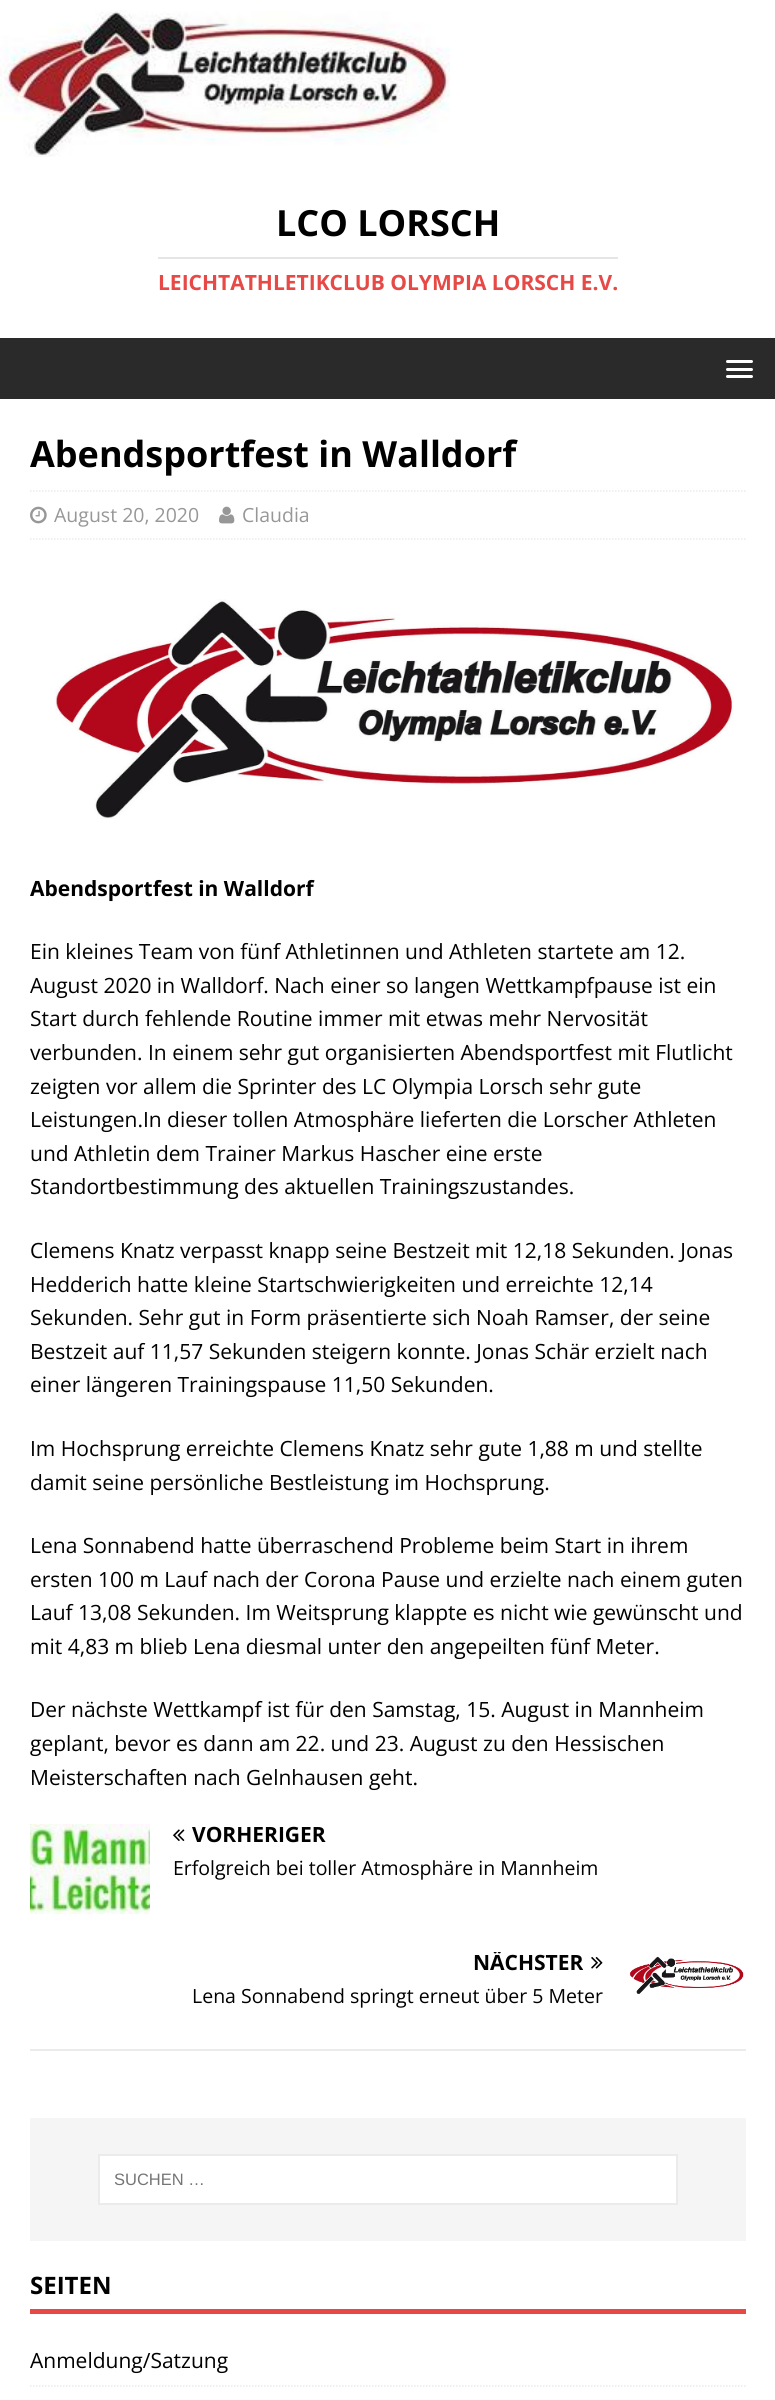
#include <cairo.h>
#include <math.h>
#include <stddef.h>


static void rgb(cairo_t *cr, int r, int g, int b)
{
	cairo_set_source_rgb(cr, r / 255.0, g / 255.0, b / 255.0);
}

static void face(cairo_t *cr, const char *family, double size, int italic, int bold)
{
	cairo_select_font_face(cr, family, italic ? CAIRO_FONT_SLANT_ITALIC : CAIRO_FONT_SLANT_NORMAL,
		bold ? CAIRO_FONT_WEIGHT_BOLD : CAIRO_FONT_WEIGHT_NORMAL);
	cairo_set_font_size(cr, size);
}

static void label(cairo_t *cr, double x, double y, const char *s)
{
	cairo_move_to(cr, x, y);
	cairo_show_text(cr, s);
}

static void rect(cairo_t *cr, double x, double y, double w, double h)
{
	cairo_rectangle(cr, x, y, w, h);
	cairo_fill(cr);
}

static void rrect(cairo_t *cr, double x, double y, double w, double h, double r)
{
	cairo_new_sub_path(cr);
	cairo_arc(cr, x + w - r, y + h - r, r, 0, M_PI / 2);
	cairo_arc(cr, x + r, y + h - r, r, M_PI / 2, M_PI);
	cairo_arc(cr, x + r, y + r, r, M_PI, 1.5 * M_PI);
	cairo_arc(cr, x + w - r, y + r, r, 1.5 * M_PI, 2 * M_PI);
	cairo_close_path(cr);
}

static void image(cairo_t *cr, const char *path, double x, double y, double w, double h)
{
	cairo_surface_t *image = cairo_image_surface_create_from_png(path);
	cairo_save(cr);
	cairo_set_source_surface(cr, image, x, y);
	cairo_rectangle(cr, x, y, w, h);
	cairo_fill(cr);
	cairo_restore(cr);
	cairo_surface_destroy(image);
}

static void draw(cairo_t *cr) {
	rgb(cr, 255, 255, 255);
	cairo_paint(cr);
	image(cr, "image0.png", 0, 10, 450, 147);
	face(cr, "Open Sans", 36, 0, 1);
	rgb(cr, 0, 0, 0);
	label(cr, 276, 236, "LCO LORSCH");
	rgb(cr, 229, 229, 229);
	rect(cr, 158, 257, 460, 2);
	face(cr, "Open Sans", 21, 0, 1);
	rgb(cr, 230, 73, 70);
	label(cr, 158, 290, "LEICHTATHLETIKCLUB OLYMPIA LORSCH E.V.");
	rgb(cr, 42, 42, 42);
	rect(cr, 0, 338, 775, 61);
	rgb(cr, 255, 255, 255);
	rrect(cr, 726, 360, 27, 3, 1.5);
	cairo_fill(cr);
	rrect(cr, 726, 368, 27, 3, 1.5);
	cairo_fill(cr);
	rrect(cr, 726, 375, 27, 3, 1.5);
	cairo_fill(cr);
	face(cr, "Open Sans", 36, 0, 1);
	rgb(cr, 0, 0, 0);
	label(cr, 30, 467, "Abendsportfest in Walldorf");
	cairo_new_path(cr);
	cairo_move_to(cr, 30, 491);
	cairo_line_to(cr, 745.5, 491);
	rgb(cr, 235, 235, 235);
	cairo_set_line_width(cr, 1.5);
	cairo_set_dash(cr, (double[]){1.5, 1.5}, 2, 0);
	cairo_stroke(cr);
	cairo_new_path(cr);
	cairo_move_to(cr, 30, 539);
	cairo_line_to(cr, 745.5, 539);
	cairo_stroke(cr);
	image(cr, "image1.png", 30, 506, 17, 18);
	face(cr, "Open Sans", 19.5, 0, 0);
	rgb(cr, 151, 151, 151);
	label(cr, 54, 522, "August 20, 2020");
	image(cr, "image2.png", 219, 506, 16, 18);
	label(cr, 242, 522, "Claudia");
	image(cr, "image3.png", 54, 599, 680, 220);
	face(cr, "Open Sans", 21, 0, 1);
	rgb(cr, 0, 0, 0);
	label(cr, 30, 896, "Abendsportfest in Walldorf");
	face(cr, "Open Sans", 21, 0, 0);
	label(cr, 30, 959, "Ein kleines Team von fünf Athletinnen und Athleten startete am 12.");
	label(cr, 30, 993, "August 2020 in Walldorf. Nach einer so langen Wettkampfpause ist ein");
	label(cr, 30, 1026, "Start durch fehlende Routine immer mit etwas mehr Nervosität");
	label(cr, 30, 1060, "verbunden. In einem sehr gut organisierten Abendsportfest mit Flutlicht");
	label(cr, 30, 1094, "zeigten vor allem die Sprinter des LC Olympia Lorsch sehr gute");
	label(cr, 30, 1127, "Leistungen.In dieser tollen Atmosphäre lieferten die Lorscher Athleten");
	label(cr, 30, 1161, "und Athletin dem Trainer Markus Hascher eine erste");
	label(cr, 30, 1194, "Standortbestimmung des aktuellen Trainingszustandes.");
	label(cr, 30, 1258, "Clemens Knatz verpasst knapp seine Bestzeit mit 12,18 Sekunden. Jonas");
	label(cr, 30, 1292, "Hedderich hatte kleine Startschwierigkeiten und erreichte 12,14");
	label(cr, 30, 1325, "Sekunden. Sehr gut in Form präsentierte sich Noah Ramser, der seine");
	label(cr, 30, 1359, "Bestzeit auf 11,57 Sekunden steigern konnte. Jonas Schär erzielt nach");
	label(cr, 30, 1392, "einer längeren Trainingspause 11,50 Sekunden.");
	label(cr, 30, 1456, "Im Hochsprung erreichte Clemens Knatz sehr gute 1,88 m und stellte");
	label(cr, 30, 1490, "damit seine persönliche Bestleistung im Hochsprung.");
	label(cr, 30, 1553, "Lena Sonnabend hatte überraschend Probleme beim Start in ihrem");
	label(cr, 30, 1587, "ersten 100 m Lauf nach der Corona Pause und erzielte nach einem guten");
	label(cr, 30, 1620, "Lauf 13,08 Sekunden. Im Weitsprung klappte es nicht wie gewünscht und");
	label(cr, 30, 1654, "mit 4,83 m blieb Lena diesmal unter den angepeilten fünf Meter.");
	label(cr, 30, 1717, "Der nächste Wettkampf ist für den Samstag, 15. August in Mannheim");
	label(cr, 30, 1751, "geplant, bevor es dann am 22. und 23. August zu den Hessischen");
	label(cr, 30, 1785, "Meisterschaften nach Gelnhausen geht.");
	rgb(cr, 235, 235, 235);
	rect(cr, 30, 2049, 716, 2);
	image(cr, "image4.png", 30, 1824, 120, 90);
	image(cr, "image5.png", 173, 1829, 12, 12);
	face(cr, "Open Sans", 21, 0, 1);
	rgb(cr, 0, 0, 0);
	label(cr, 192, 1842, "VORHERIGER");
	face(cr, "Open Sans", 19.5, 0, 0);
	label(cr, 173, 1875, "Erfolgreich bei toller Atmosphäre in Mannheim");
	cairo_save(cr);
	cairo_rectangle(cr, 30, 1952, 573, 21);
	cairo_clip(cr);
	face(cr, "Open Sans", 21, 0, 1);
	label(cr, 473, 1970, "NÄCHSTER");
	cairo_restore(cr);
	image(cr, "image6.png", 591, 1957, 12, 12);
	image(cr, "image7.png", 630, 1956, 114, 38);
	label(cr, 192, 2003, "Lena Sonnabend springt erneut über 5 Meter");
	rgb(cr, 245, 245, 245);
	rect(cr, 30, 2118, 716, 123);
	rgb(cr, 255, 255, 255);
	cairo_rectangle(cr, 99, 2155, 578, 49);
	cairo_fill_preserve(cr);
	rgb(cr, 235, 235, 235);
	cairo_set_line_width(cr, 2);
	cairo_set_dash(cr, NULL, 0, 0);
	cairo_stroke(cr);
	face(cr, "Liberation Sans", 16.5, 0, 0);
	rgb(cr, 117, 117, 117);
	label(cr, 114, 2185, "SUCHEN …");
	rgb(cr, 230, 73, 70);
	rect(cr, 30, 2309, 716, 5);
	face(cr, "Open Sans", 24, 0, 1);
	rgb(cr, 0, 0, 0);
	label(cr, 30, 2294, "SEITEN");
	cairo_new_path(cr);
	cairo_move_to(cr, 30, 2386);
	cairo_line_to(cr, 745.5, 2386);
	rgb(cr, 235, 235, 235);
	cairo_set_line_width(cr, 1.5);
	cairo_set_dash(cr, (double[]){1.5, 1.5}, 2, 0);
	cairo_stroke(cr);
	face(cr, "Open Sans", 21, 0, 0);
	rgb(cr, 0, 0, 0);
	label(cr, 30, 2368, "Anmeldung/Satzung");
}

int main(void) {
	cairo_surface_t *surface = cairo_image_surface_create(CAIRO_FORMAT_RGB24, 775, 2400);
	cairo_t *cr = cairo_create(surface);
	cairo_font_options_t *options = cairo_font_options_create();
	cairo_font_options_set_hint_metrics(options, CAIRO_HINT_METRICS_OFF);
	cairo_font_options_set_hint_style(options, CAIRO_HINT_STYLE_NONE);
	cairo_set_font_options(cr, options);
	cairo_set_miter_limit(cr, 4);
	draw(cr);
	cairo_surface_write_to_png(surface, "render.png");
	cairo_font_options_destroy(options);
	cairo_destroy(cr);
	cairo_surface_destroy(surface);
	return 0;
}
